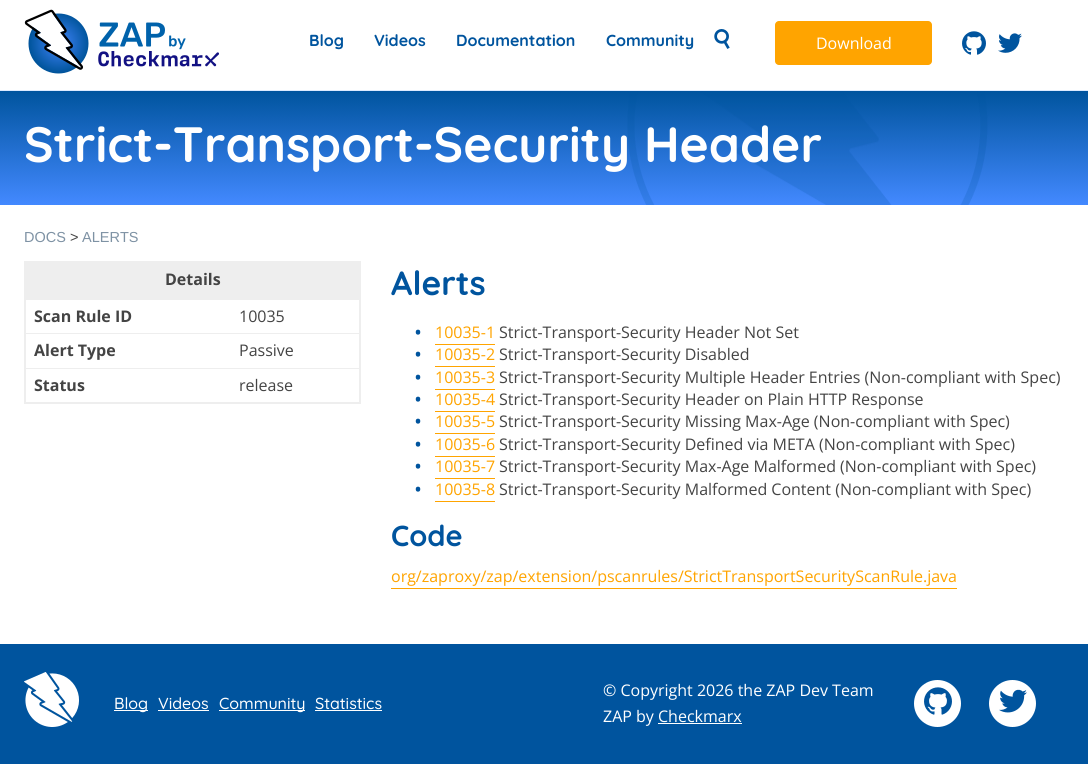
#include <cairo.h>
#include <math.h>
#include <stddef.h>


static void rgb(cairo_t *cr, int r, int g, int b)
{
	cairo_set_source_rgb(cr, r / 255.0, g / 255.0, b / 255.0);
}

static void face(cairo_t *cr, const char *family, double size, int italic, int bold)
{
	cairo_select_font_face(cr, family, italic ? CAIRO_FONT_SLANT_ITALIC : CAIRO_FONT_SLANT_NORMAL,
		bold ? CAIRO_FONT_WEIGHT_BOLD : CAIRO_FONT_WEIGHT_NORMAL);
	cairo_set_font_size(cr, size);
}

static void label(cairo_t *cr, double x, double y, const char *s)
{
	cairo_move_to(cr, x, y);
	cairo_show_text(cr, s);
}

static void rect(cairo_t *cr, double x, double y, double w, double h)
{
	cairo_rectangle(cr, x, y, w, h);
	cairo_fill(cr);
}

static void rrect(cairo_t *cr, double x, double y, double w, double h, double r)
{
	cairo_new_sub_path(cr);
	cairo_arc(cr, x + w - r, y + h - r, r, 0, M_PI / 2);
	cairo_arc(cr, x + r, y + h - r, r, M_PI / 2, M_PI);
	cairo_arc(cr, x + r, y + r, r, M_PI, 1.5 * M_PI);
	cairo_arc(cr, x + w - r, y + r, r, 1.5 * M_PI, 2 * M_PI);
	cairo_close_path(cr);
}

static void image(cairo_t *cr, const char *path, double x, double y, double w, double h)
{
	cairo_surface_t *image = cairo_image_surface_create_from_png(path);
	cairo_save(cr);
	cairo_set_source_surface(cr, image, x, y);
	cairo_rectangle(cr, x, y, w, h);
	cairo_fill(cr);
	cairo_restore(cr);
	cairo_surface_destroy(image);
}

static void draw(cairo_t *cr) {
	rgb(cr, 255, 255, 255);
	cairo_paint(cr);
	rgb(cr, 220, 234, 255);
	rect(cr, 0, 90, 1088, 1);
	image(cr, "image0.png", 24, 9, 195, 65);
	face(cr, "Quicksand", 16, 0, 1);
	rgb(cr, 0, 84, 158);
	label(cr, 309, 46, "Blog");
	label(cr, 374, 46, "Videos");
	label(cr, 456, 46, "Documentation");
	label(cr, 606, 46, "Community");
	image(cr, "image1.png", 714, 29, 16, 20);
	rgb(cr, 255, 164, 0);
	rrect(cr, 775, 21, 157, 44, 4);
	cairo_fill(cr);
	face(cr, "Open Sans", 16, 0, 0);
	rgb(cr, 255, 255, 255);
	label(cr, 816, 49, "Download");
	image(cr, "image2.png", 962, 31, 24, 24);
	image(cr, "image3.png", 998, 33, 24, 20);
	image(cr, "image4.png", 0, 91, 1088, 114);
	face(cr, "Quicksand", 49.6, 0, 1);
	label(cr, 24, 162, "Strict-Transport-Security Header");
	face(cr, "Liberation Sans", 14.5, 0, 0);
	rgb(cr, 126, 146, 164);
	label(cr, 24, 242, "DOCS");
	rgb(cr, 68, 68, 68);
	label(cr, 70, 242, ">");
	rgb(cr, 126, 146, 164);
	label(cr, 82, 242, "ALERTS");
	rgb(cr, 238, 238, 238);
	rect(cr, 24, 261, 337, 2);
	rect(cr, 25, 333, 335, 1);
	rect(cr, 25, 368, 335, 1);
	rect(cr, 359, 261, 2, 143);
	rect(cr, 24, 402, 337, 2);
	rect(cr, 24, 261, 2, 143);
	rect(cr, 26, 263, 333, 34);
	rect(cr, 24, 297, 337, 3);
	face(cr, "Open Sans", 16, 0, 1);
	rgb(cr, 68, 68, 68);
	label(cr, 165, 285, "Details");
	label(cr, 34, 322, "Scan Rule ID");
	face(cr, "Open Sans", 16, 0, 0);
	label(cr, 239, 322, "10035");
	face(cr, "Open Sans", 16, 0, 1);
	label(cr, 34, 356, "Alert Type");
	face(cr, "Open Sans", 16, 0, 0);
	label(cr, 239, 356, "Passive");
	face(cr, "Open Sans", 16, 0, 1);
	label(cr, 34, 391, "Status");
	face(cr, "Open Sans", 16, 0, 0);
	label(cr, 239, 391, "release");
	face(cr, "Quicksand", 33.5, 0, 1);
	rgb(cr, 0, 84, 158);
	label(cr, 391, 295, "Alerts");
	face(cr, "Open Sans", 16, 0, 1);
	label(cr, 415, 338, "•");
	face(cr, "Open Sans", 16, 0, 0);
	rgb(cr, 255, 164, 0);
	label(cr, 435, 338, "10035-1");
	rect(cr, 435, 344, 60, 1);
	rgb(cr, 68, 68, 68);
	label(cr, 499, 338, "Strict-Transport-Security Header Not Set");
	face(cr, "Open Sans", 16, 0, 1);
	rgb(cr, 0, 84, 158);
	label(cr, 415, 360, "•");
	face(cr, "Open Sans", 16, 0, 0);
	rgb(cr, 255, 164, 0);
	label(cr, 435, 360, "10035-2");
	rect(cr, 435, 366, 60, 1);
	rgb(cr, 68, 68, 68);
	label(cr, 499, 360, "Strict-Transport-Security Disabled");
	face(cr, "Open Sans", 16, 0, 1);
	rgb(cr, 0, 84, 158);
	label(cr, 415, 383, "•");
	face(cr, "Open Sans", 16, 0, 0);
	rgb(cr, 255, 164, 0);
	label(cr, 435, 383, "10035-3");
	rect(cr, 435, 389, 60, 1);
	rgb(cr, 68, 68, 68);
	label(cr, 499, 383, "Strict-Transport-Security Multiple Header Entries (Non-compliant with Spec)");
	face(cr, "Open Sans", 16, 0, 1);
	rgb(cr, 0, 84, 158);
	label(cr, 415, 405, "•");
	face(cr, "Open Sans", 16, 0, 0);
	rgb(cr, 255, 164, 0);
	label(cr, 435, 405, "10035-4");
	rect(cr, 435, 411, 60, 1);
	rgb(cr, 68, 68, 68);
	label(cr, 499, 405, "Strict-Transport-Security Header on Plain HTTP Response");
	face(cr, "Open Sans", 16, 0, 1);
	rgb(cr, 0, 84, 158);
	label(cr, 415, 427, "•");
	face(cr, "Open Sans", 16, 0, 0);
	rgb(cr, 255, 164, 0);
	label(cr, 435, 427, "10035-5");
	rect(cr, 435, 433, 60, 1);
	rgb(cr, 68, 68, 68);
	label(cr, 499, 427, "Strict-Transport-Security Missing Max-Age (Non-compliant with Spec)");
	face(cr, "Open Sans", 16, 0, 1);
	rgb(cr, 0, 84, 158);
	label(cr, 415, 450, "•");
	face(cr, "Open Sans", 16, 0, 0);
	rgb(cr, 255, 164, 0);
	label(cr, 435, 450, "10035-6");
	rect(cr, 435, 456, 60, 1);
	rgb(cr, 68, 68, 68);
	label(cr, 499, 450, "Strict-Transport-Security Defined via META (Non-compliant with Spec)");
	face(cr, "Open Sans", 16, 0, 1);
	rgb(cr, 0, 84, 158);
	label(cr, 415, 472, "•");
	face(cr, "Open Sans", 16, 0, 0);
	rgb(cr, 255, 164, 0);
	label(cr, 435, 472, "10035-7");
	rect(cr, 435, 478, 60, 1);
	rgb(cr, 68, 68, 68);
	label(cr, 499, 472, "Strict-Transport-Security Max-Age Malformed (Non-compliant with Spec)");
	face(cr, "Open Sans", 16, 0, 1);
	rgb(cr, 0, 84, 158);
	label(cr, 415, 495, "•");
	face(cr, "Open Sans", 16, 0, 0);
	rgb(cr, 255, 164, 0);
	label(cr, 435, 495, "10035-8");
	rect(cr, 435, 501, 60, 1);
	rgb(cr, 68, 68, 68);
	label(cr, 499, 495, "Strict-Transport-Security Malformed Content (Non-compliant with Spec)");
	face(cr, "Quicksand", 29, 0, 1);
	rgb(cr, 0, 84, 158);
	label(cr, 391, 546, "Code");
	face(cr, "Open Sans", 16, 0, 0);
	rgb(cr, 255, 164, 0);
	label(cr, 391, 582, "org/zaproxy/zap/extension/pscanrules/StrictTransportSecurityScanRule.java");
	rect(cr, 391, 588, 566, 1);
	rgb(cr, 0, 84, 158);
	rect(cr, 0, 644, 1088, 120);
	image(cr, "image5.png", 24, 672, 55, 55);
	rgb(cr, 255, 255, 255);
	rect(cr, 114, 710, 34, 1);
	face(cr, "Quicksand Medium", 16, 0, 0);
	label(cr, 114, 709, "Blog");
	label(cr, 158, 709, "Videos");
	rect(cr, 158, 710, 51, 1);
	rect(cr, 219, 710, 86, 1);
	label(cr, 219, 709, "Community");
	label(cr, 315, 709, "Statistics");
	rect(cr, 315, 710, 67, 1);
	face(cr, "Open Sans", 16, 0, 0);
	label(cr, 603, 696, "© Copyright 2026 the ZAP Dev Team");
	label(cr, 603, 722, "ZAP by Checkmarx");
	rect(cr, 658, 723, 84, 1);
	cairo_new_path(cr);
	cairo_arc(cr, 937.5, 703.5, 23.5, 0, 2 * M_PI);
	cairo_fill(cr);
	image(cr, "image6.png", 924, 687, 28, 28);
	cairo_arc(cr, 1012.5, 703.5, 23.5, 0, 2 * M_PI);
	cairo_fill(cr);
	image(cr, "image7.png", 999, 689, 28, 24);
}

int main(void) {
	cairo_surface_t *surface = cairo_image_surface_create(CAIRO_FORMAT_RGB24, 1088, 764);
	cairo_t *cr = cairo_create(surface);
	cairo_font_options_t *options = cairo_font_options_create();
	cairo_font_options_set_hint_metrics(options, CAIRO_HINT_METRICS_OFF);
	cairo_font_options_set_hint_style(options, CAIRO_HINT_STYLE_NONE);
	cairo_set_font_options(cr, options);
	cairo_set_miter_limit(cr, 4);
	draw(cr);
	cairo_surface_write_to_png(surface, "render.png");
	cairo_font_options_destroy(options);
	cairo_destroy(cr);
	cairo_surface_destroy(surface);
	return 0;
}
